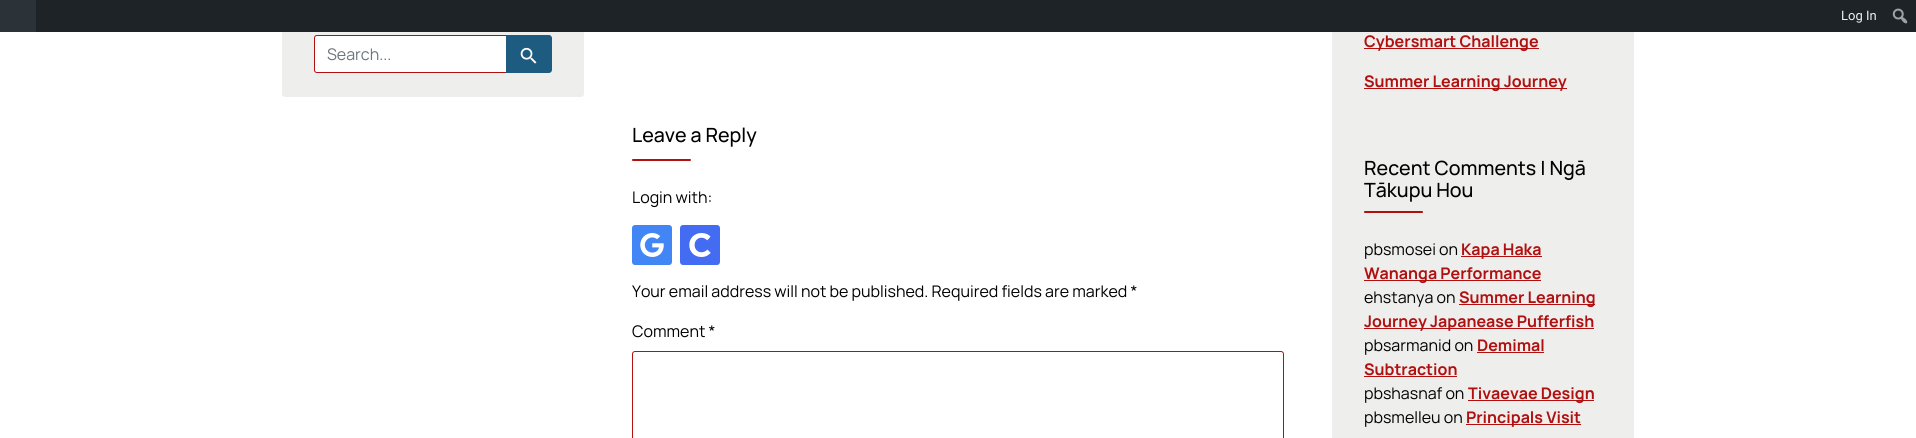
#include <cairo.h>
#include <math.h>
#include <stddef.h>


static void rgb(cairo_t *cr, int r, int g, int b)
{
	cairo_set_source_rgb(cr, r / 255.0, g / 255.0, b / 255.0);
}

static void face(cairo_t *cr, const char *family, double size, int italic, int bold)
{
	cairo_select_font_face(cr, family, italic ? CAIRO_FONT_SLANT_ITALIC : CAIRO_FONT_SLANT_NORMAL,
		bold ? CAIRO_FONT_WEIGHT_BOLD : CAIRO_FONT_WEIGHT_NORMAL);
	cairo_set_font_size(cr, size);
}

static void label(cairo_t *cr, double x, double y, const char *s)
{
	cairo_move_to(cr, x, y);
	cairo_show_text(cr, s);
}

static void rect(cairo_t *cr, double x, double y, double w, double h)
{
	cairo_rectangle(cr, x, y, w, h);
	cairo_fill(cr);
}

static void rrect(cairo_t *cr, double x, double y, double w, double h, double r)
{
	cairo_new_sub_path(cr);
	cairo_arc(cr, x + w - r, y + h - r, r, 0, M_PI / 2);
	cairo_arc(cr, x + r, y + h - r, r, M_PI / 2, M_PI);
	cairo_arc(cr, x + r, y + r, r, M_PI, 1.5 * M_PI);
	cairo_arc(cr, x + w - r, y + r, r, 1.5 * M_PI, 2 * M_PI);
	cairo_close_path(cr);
}

static void image(cairo_t *cr, const char *path, double x, double y, double w, double h)
{
	cairo_surface_t *image = cairo_image_surface_create_from_png(path);
	cairo_save(cr);
	cairo_set_source_surface(cr, image, x, y);
	cairo_rectangle(cr, x, y, w, h);
	cairo_fill(cr);
	cairo_restore(cr);
	cairo_surface_destroy(image);
}

static void draw(cairo_t *cr) {
	rgb(cr, 255, 255, 255);
	cairo_paint(cr);
	rgb(cr, 238, 238, 236);
	rrect(cr, 282, -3, 302, 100, 3);
	cairo_fill(cr);
	rgb(cr, 29, 35, 39);
	rect(cr, 36, 0, 1880, 32);
	rgb(cr, 44, 51, 56);
	rect(cr, 0, 0, 36, 32);
	face(cr, "Roboto", 13, 0, 0);
	rgb(cr, 240, 240, 241);
	label(cr, 1841, 20, "Log In");
	image(cr, "image0.png", 1892, 8, 16, 16);
	rgb(cr, 255, 255, 255);
	cairo_new_path(cr);
	cairo_move_to(cr, 317, 35.5);
	cairo_line_to(cr, 506.5, 35.5);
	cairo_line_to(cr, 506.5, 72.5);
	cairo_line_to(cr, 317, 72.5);
	cairo_curve_to(cr, 315.5, 72.5, 314.5, 71.5, 314.5, 70);
	cairo_line_to(cr, 314.5, 38);
	cairo_curve_to(cr, 314.5, 36.5, 315.5, 35.5, 317, 35.5);
	cairo_close_path(cr);
	cairo_fill_preserve(cr);
	rgb(cr, 177, 16, 16);
	cairo_set_line_width(cr, 1);
	cairo_stroke(cr);
	face(cr, "Manrope", 16, 0, 0);
	rgb(cr, 108, 117, 125);
	label(cr, 327, 60, "Search...");
	rgb(cr, 29, 92, 128);
	cairo_new_path(cr);
	cairo_move_to(cr, 506, 35);
	cairo_line_to(cr, 549, 35);
	cairo_curve_to(cr, 550.5, 35, 552, 36.5, 552, 38);
	cairo_line_to(cr, 552, 70);
	cairo_curve_to(cr, 552, 71.5, 550.5, 73, 549, 73);
	cairo_line_to(cr, 506, 73);
	cairo_close_path(cr);
	cairo_fill(cr);
	image(cr, "image1.png", 520, 47, 17, 17);
	rgb(cr, 238, 238, 236);
	rect(cr, 1332, 32, 302, 406);
	rgb(cr, 177, 16, 16);
	rect(cr, 1364, 48, 175, 1);
	face(cr, "Manrope", 16, 0, 1);
	label(cr, 1364, 47, "Cybersmart Challenge");
	rect(cr, 1364, 88, 203, 1);
	label(cr, 1364, 87, "Summer Learning Journey");
	face(cr, "Manrope Medium", 19.6, 0, 0);
	rgb(cr, 0, 0, 0);
	label(cr, 1364, 175, "Recent Comments | Ngā");
	label(cr, 1364, 197, "Tākupu Hou");
	rgb(cr, 177, 16, 16);
	rrect(cr, 1364, 211, 59, 2, 1);
	cairo_fill(cr);
	face(cr, "Manrope", 16, 0, 0);
	rgb(cr, 0, 0, 0);
	label(cr, 1364, 255, "pbsmosei on");
	rgb(cr, 177, 16, 16);
	rect(cr, 1461, 256, 81, 1);
	face(cr, "Manrope", 16, 0, 1);
	label(cr, 1461, 255, "Kapa Haka");
	rect(cr, 1364, 280, 177, 1);
	label(cr, 1364, 279, "Wananga Performance");
	face(cr, "Manrope", 16, 0, 0);
	rgb(cr, 0, 0, 0);
	label(cr, 1364, 303, "ehstanya on");
	rgb(cr, 177, 16, 16);
	rect(cr, 1459, 304, 136, 1);
	face(cr, "Manrope", 16, 0, 1);
	label(cr, 1459, 303, "Summer Learning");
	rect(cr, 1364, 328, 230, 1);
	label(cr, 1364, 327, "Journey Japanease Pufferfish");
	face(cr, "Manrope", 16, 0, 0);
	rgb(cr, 0, 0, 0);
	label(cr, 1364, 351, "pbsarmanid on");
	face(cr, "Manrope", 16, 0, 1);
	rgb(cr, 177, 16, 16);
	label(cr, 1477, 351, "Demimal");
	rect(cr, 1477, 352, 67, 1);
	label(cr, 1364, 375, "Subtraction");
	rect(cr, 1364, 376, 93, 1);
	face(cr, "Manrope", 16, 0, 0);
	rgb(cr, 0, 0, 0);
	label(cr, 1364, 399, "pbshasnaf on");
	rgb(cr, 177, 16, 16);
	rect(cr, 1468, 400, 126, 1);
	face(cr, "Manrope", 16, 0, 1);
	label(cr, 1468, 399, "Tivaevae Design");
	face(cr, "Manrope", 16, 0, 0);
	rgb(cr, 0, 0, 0);
	label(cr, 1364, 423, "pbsmelleu on");
	rgb(cr, 177, 16, 16);
	rect(cr, 1466, 424, 115, 1);
	face(cr, "Manrope", 16, 0, 1);
	label(cr, 1466, 423, "Principals Visit");
	face(cr, "Manrope Medium", 19.6, 0, 0);
	rgb(cr, 0, 0, 0);
	label(cr, 632, 142, "Leave a Reply");
	rgb(cr, 180, 17, 17);
	rrect(cr, 632, 159, 59, 2, 1);
	cairo_fill(cr);
	face(cr, "Manrope", 16, 0, 0);
	rgb(cr, 0, 0, 0);
	label(cr, 632, 203, "Login with:");
	rgb(cr, 66, 133, 244);
	rrect(cr, 632, 225, 40, 40, 3);
	cairo_fill(cr);
	image(cr, "image2.png", 640, 233, 24, 24);
	rgb(cr, 67, 108, 242);
	rrect(cr, 680, 225, 40, 40, 3);
	cairo_fill(cr);
	image(cr, "image3.png", 689, 233, 22, 24);
	rgb(cr, 0, 0, 0);
	label(cr, 632, 297, "Your email address will not be published. Required fields are marked *");
	label(cr, 632, 337, "Comment *");
	rrect(cr, 632.5, 351.5, 651, 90, 2.5);
	rgb(cr, 180, 17, 17);
	cairo_stroke(cr);
}

int main(void) {
	cairo_surface_t *surface = cairo_image_surface_create(CAIRO_FORMAT_RGB24, 1916, 438);
	cairo_t *cr = cairo_create(surface);
	cairo_font_options_t *options = cairo_font_options_create();
	cairo_font_options_set_hint_metrics(options, CAIRO_HINT_METRICS_OFF);
	cairo_font_options_set_hint_style(options, CAIRO_HINT_STYLE_NONE);
	cairo_set_font_options(cr, options);
	cairo_set_miter_limit(cr, 4);
	draw(cr);
	cairo_surface_write_to_png(surface, "render.png");
	cairo_font_options_destroy(options);
	cairo_destroy(cr);
	cairo_surface_destroy(surface);
	return 0;
}
